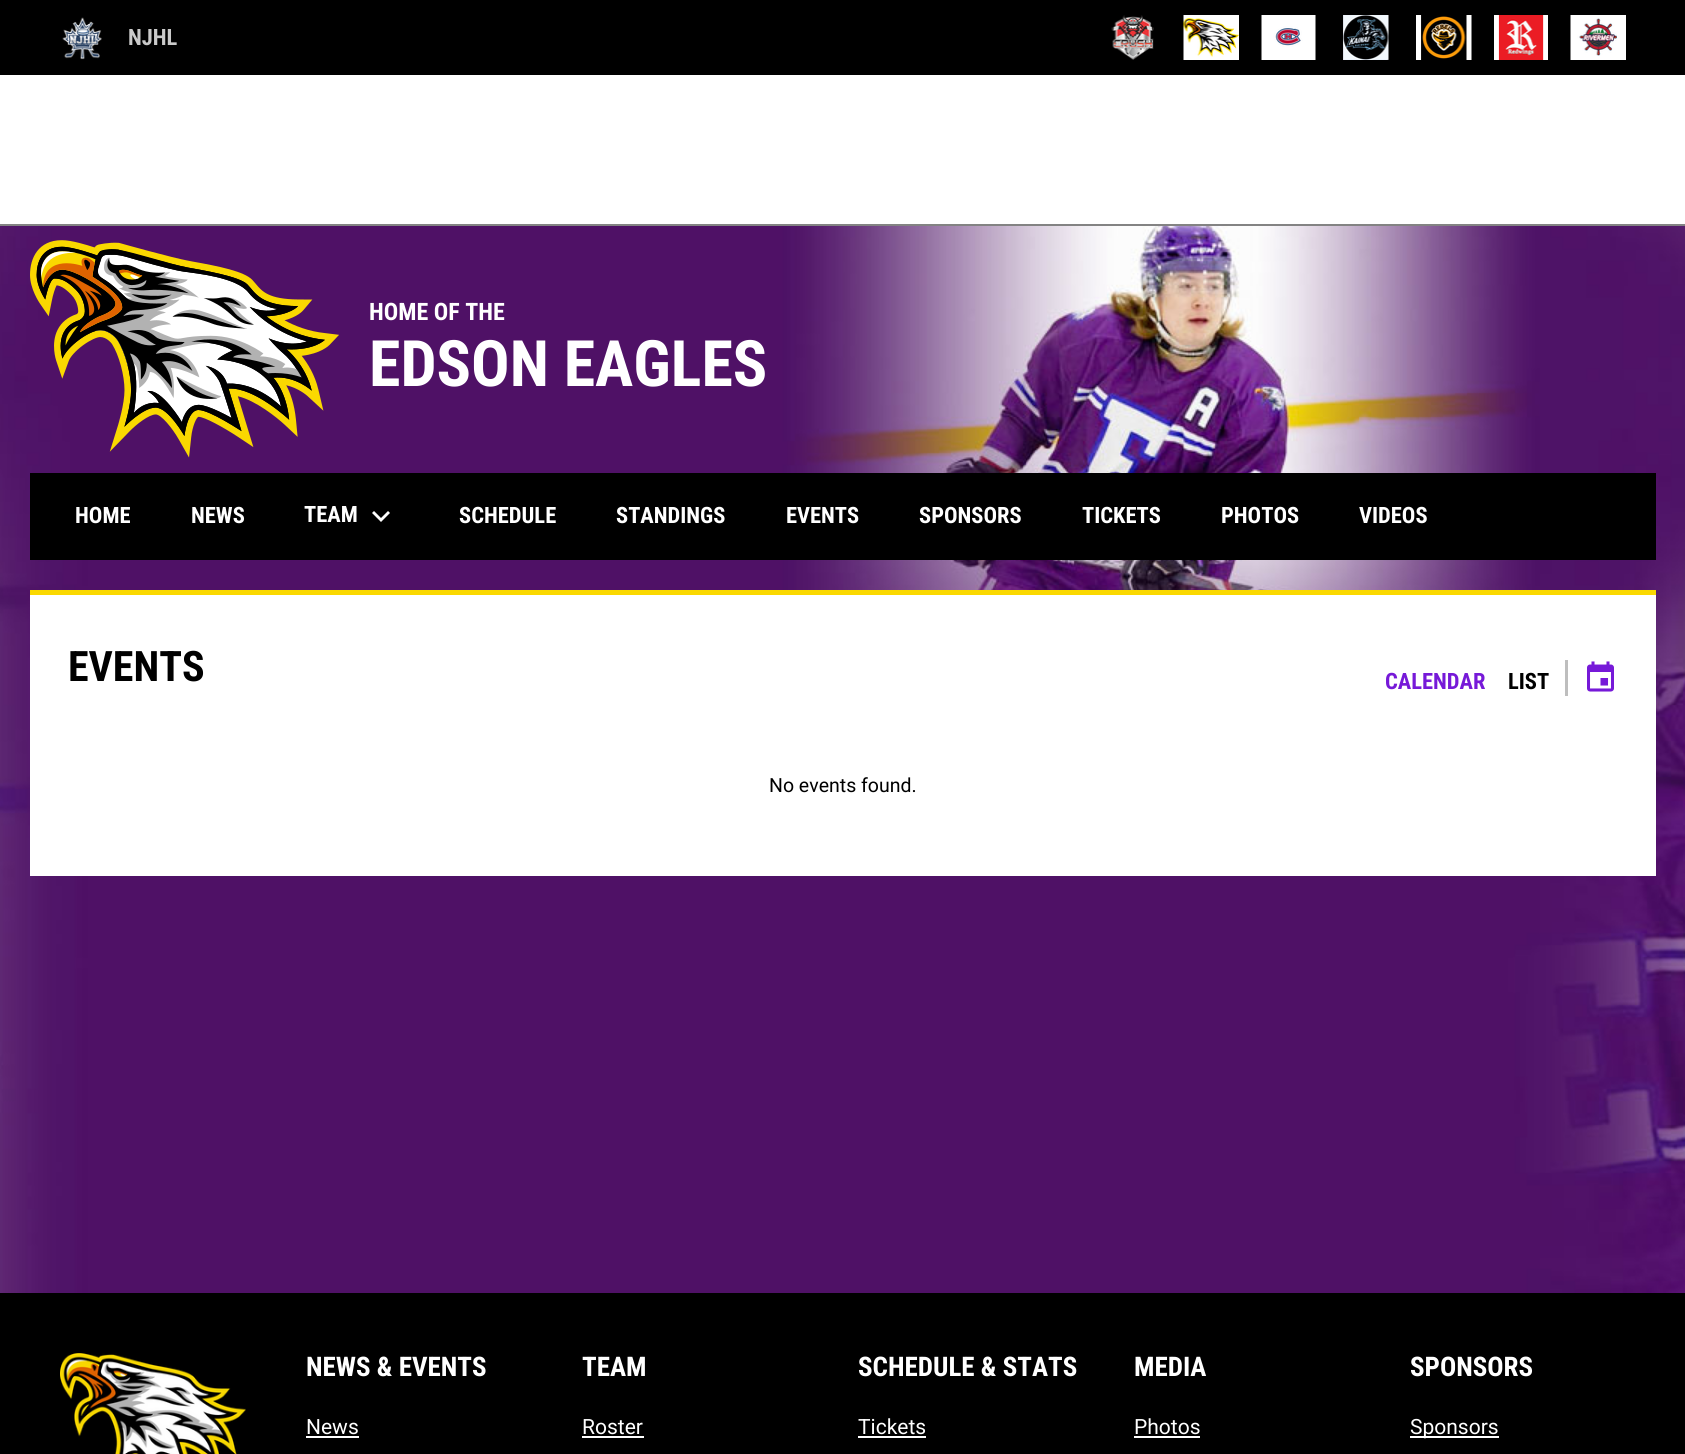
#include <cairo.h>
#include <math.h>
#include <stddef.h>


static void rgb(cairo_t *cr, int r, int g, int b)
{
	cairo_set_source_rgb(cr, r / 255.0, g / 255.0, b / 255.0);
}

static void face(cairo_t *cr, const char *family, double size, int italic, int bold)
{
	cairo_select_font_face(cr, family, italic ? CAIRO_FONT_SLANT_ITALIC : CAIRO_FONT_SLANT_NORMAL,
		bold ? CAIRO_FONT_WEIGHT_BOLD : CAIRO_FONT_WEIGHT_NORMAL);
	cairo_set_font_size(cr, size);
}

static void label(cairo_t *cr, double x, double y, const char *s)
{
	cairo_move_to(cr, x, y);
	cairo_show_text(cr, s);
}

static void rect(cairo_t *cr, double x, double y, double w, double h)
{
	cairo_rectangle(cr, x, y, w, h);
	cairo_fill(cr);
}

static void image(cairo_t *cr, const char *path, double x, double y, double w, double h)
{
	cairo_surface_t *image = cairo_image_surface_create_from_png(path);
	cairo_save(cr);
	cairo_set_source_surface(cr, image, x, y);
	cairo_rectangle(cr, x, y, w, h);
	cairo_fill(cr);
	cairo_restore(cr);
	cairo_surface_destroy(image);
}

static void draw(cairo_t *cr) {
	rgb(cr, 255, 255, 255);
	cairo_paint(cr);
	rgb(cr, 0, 0, 0);
	rect(cr, 0, 0, 1685, 75);
	image(cr, "image0.png", 62, 17, 40, 43);
	face(cr, "Roboto Condensed", 22.5, 0, 1);
	rgb(cr, 202, 202, 202);
	label(cr, 128, 45, "NJHL");
	image(cr, "image1.png", 1111, 15, 43, 45);
	image(cr, "image2.png", 1183, 15, 56, 45);
	image(cr, "image3.png", 1261, 15, 55, 45);
	image(cr, "image4.png", 1343, 15, 46, 45);
	image(cr, "image5.png", 1416, 15, 56, 45);
	image(cr, "image6.png", 1494, 15, 54, 45);
	image(cr, "image7.png", 1570, 15, 56, 45);
	rgb(cr, 131, 131, 131);
	rect(cr, 0, 224, 1685, 2);
	image(cr, "image8.png", 0, 226, 1685, 1067);
	image(cr, "image9.png", 30, 240, 309, 218);
	face(cr, "Roboto Condensed", 24, 0, 1);
	rgb(cr, 255, 255, 255);
	label(cr, 369, 320, "HOME OF THE");
	face(cr, "Roboto Condensed", 64, 0, 1);
	label(cr, 369, 386, "EDSON EAGLES");
	rgb(cr, 0, 0, 0);
	rect(cr, 30, 473, 1626, 87);
	face(cr, "Roboto Condensed", 22.5, 0, 1);
	rgb(cr, 255, 255, 255);
	label(cr, 75, 523, "HOME");
	label(cr, 191, 523, "NEWS");
	label(cr, 304, 522, "TEAM");
	cairo_new_path(cr);
	cairo_move_to(cr, 374, 511);
	cairo_line_to(cr, 381, 518);
	cairo_line_to(cr, 388, 511);
	cairo_line_to(cr, 390, 513);
	cairo_line_to(cr, 381, 522);
	cairo_line_to(cr, 372, 513);
	cairo_close_path(cr);
	cairo_fill(cr);
	label(cr, 459, 523, "SCHEDULE");
	label(cr, 616, 523, "STANDINGS");
	label(cr, 786, 523, "EVENTS");
	label(cr, 919, 523, "SPONSORS");
	label(cr, 1082, 523, "TICKETS");
	label(cr, 1221, 523, "PHOTOS");
	label(cr, 1359, 523, "VIDEOS");
	rect(cr, 30, 595, 1626, 281);
	rgb(cr, 250, 216, 0);
	rect(cr, 30, 590, 1626, 5);
	face(cr, "Roboto Condensed", 42, 0, 1);
	rgb(cr, 0, 0, 0);
	label(cr, 68, 681, "EVENTS");
	face(cr, "Roboto Condensed", 22.5, 0, 1);
	rgb(cr, 118, 25, 216);
	label(cr, 1385, 689, "CALENDAR");
	rgb(cr, 0, 0, 0);
	label(cr, 1508, 689, "LIST");
	rgb(cr, 190, 190, 190);
	rect(cr, 1565, 660, 3, 36);
	image(cr, "image10.png", 1587, 661, 27, 31);
	face(cr, "Roboto", 19.5, 0, 0);
	rgb(cr, 0, 0, 0);
	label(cr, 769, 792, "No events found.");
	rect(cr, 0, 1293, 1685, 161);
	image(cr, "image11.png", 60, 1353, 186, 101);
	face(cr, "Roboto Condensed", 27, 0, 1);
	rgb(cr, 255, 255, 255);
	label(cr, 306, 1376, "NEWS & EVENTS");
	face(cr, "Roboto", 21, 0, 0);
	label(cr, 306, 1434, "News");
	rect(cr, 306, 1436, 53, 2);
	face(cr, "Roboto Condensed", 27, 0, 1);
	label(cr, 582, 1376, "TEAM");
	face(cr, "Roboto", 21, 0, 0);
	label(cr, 582, 1434, "Roster");
	rect(cr, 582, 1436, 62, 2);
	face(cr, "Roboto Condensed", 27, 0, 1);
	label(cr, 858, 1376, "SCHEDULE & STATS");
	face(cr, "Roboto", 21, 0, 0);
	label(cr, 858, 1434, "Tickets");
	rect(cr, 858, 1436, 68, 2);
	face(cr, "Roboto Condensed", 27, 0, 1);
	label(cr, 1134, 1376, "MEDIA");
	face(cr, "Roboto", 21, 0, 0);
	label(cr, 1134, 1434, "Photos");
	rect(cr, 1134, 1436, 66, 2);
	face(cr, "Roboto Condensed", 27, 0, 1);
	label(cr, 1410, 1376, "SPONSORS");
	rect(cr, 1410, 1436, 89, 2);
	face(cr, "Roboto", 21, 0, 0);
	label(cr, 1410, 1434, "Sponsors");
}

int main(void) {
	cairo_surface_t *surface = cairo_image_surface_create(CAIRO_FORMAT_RGB24, 1685, 1454);
	cairo_t *cr = cairo_create(surface);
	cairo_font_options_t *options = cairo_font_options_create();
	cairo_font_options_set_hint_metrics(options, CAIRO_HINT_METRICS_OFF);
	cairo_font_options_set_hint_style(options, CAIRO_HINT_STYLE_NONE);
	cairo_set_font_options(cr, options);
	cairo_set_miter_limit(cr, 4);
	draw(cr);
	cairo_surface_write_to_png(surface, "render.png");
	cairo_font_options_destroy(options);
	cairo_destroy(cr);
	cairo_surface_destroy(surface);
	return 0;
}
